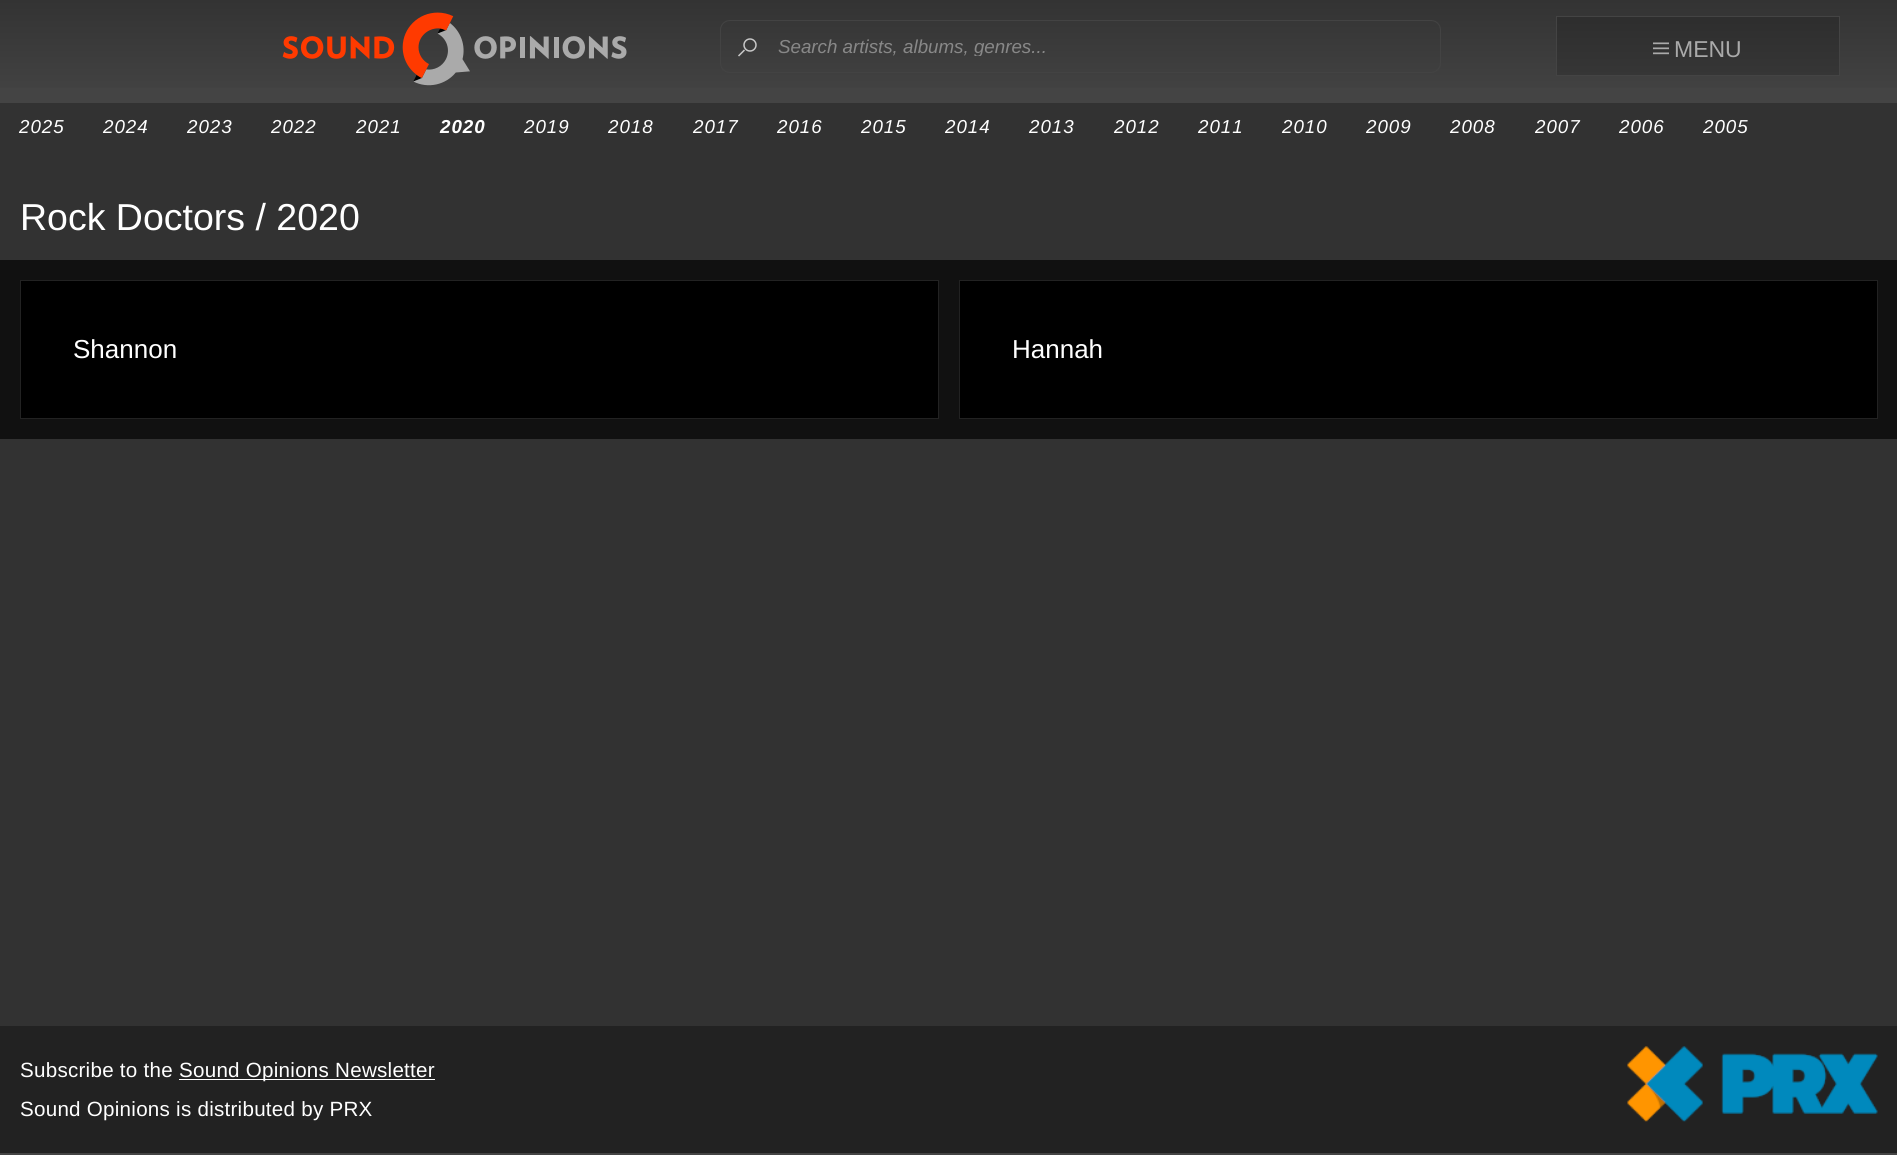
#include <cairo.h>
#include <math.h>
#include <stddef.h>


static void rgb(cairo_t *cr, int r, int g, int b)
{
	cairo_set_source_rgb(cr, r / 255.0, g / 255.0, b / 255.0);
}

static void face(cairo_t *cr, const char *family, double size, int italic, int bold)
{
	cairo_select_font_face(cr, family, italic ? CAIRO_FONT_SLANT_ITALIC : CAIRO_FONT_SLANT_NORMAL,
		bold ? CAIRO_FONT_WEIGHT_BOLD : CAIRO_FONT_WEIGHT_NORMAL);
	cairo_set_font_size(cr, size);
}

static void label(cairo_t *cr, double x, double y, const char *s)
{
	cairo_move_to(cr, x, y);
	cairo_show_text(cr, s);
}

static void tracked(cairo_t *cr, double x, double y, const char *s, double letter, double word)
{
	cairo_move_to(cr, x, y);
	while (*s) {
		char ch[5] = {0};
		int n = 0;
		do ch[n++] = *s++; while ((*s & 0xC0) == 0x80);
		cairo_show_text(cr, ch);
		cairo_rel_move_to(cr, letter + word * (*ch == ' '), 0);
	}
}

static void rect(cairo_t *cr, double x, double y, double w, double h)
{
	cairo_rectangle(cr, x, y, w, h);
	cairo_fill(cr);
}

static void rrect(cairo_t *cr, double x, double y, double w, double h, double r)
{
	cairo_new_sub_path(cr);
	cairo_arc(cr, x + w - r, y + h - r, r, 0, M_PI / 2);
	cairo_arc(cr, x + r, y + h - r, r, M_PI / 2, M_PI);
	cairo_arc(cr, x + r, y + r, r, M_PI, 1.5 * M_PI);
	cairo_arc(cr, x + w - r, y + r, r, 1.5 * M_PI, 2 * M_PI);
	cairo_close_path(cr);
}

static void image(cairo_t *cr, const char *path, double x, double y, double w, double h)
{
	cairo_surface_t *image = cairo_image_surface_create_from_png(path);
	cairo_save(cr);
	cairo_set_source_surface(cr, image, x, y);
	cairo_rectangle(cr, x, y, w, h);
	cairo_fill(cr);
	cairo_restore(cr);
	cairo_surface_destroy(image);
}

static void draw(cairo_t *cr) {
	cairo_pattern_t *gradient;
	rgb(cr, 68, 68, 68);
	cairo_paint(cr);
	gradient = cairo_pattern_create_linear(949, 0, 949, 103);
	cairo_pattern_add_color_stop_rgba(gradient, 0, 0.2, 0.2, 0.2, 1);
	cairo_pattern_add_color_stop_rgba(gradient, 1, 0.267, 0.267, 0.267, 1);
	cairo_set_source(cr, gradient);
	cairo_pattern_destroy(gradient);
	rect(cr, 0, 0, 1897, 88);
	gradient = cairo_pattern_create_linear(949, 0, 949, 103);
	cairo_pattern_add_color_stop_rgba(gradient, 0, 0.169, 0.169, 0.169, 1);
	cairo_pattern_add_color_stop_rgba(gradient, 1, 0.227, 0.227, 0.227, 1);
	cairo_set_source(cr, gradient);
	cairo_pattern_destroy(gradient);
	rect(cr, 1557, 17, 282, 58);
	image(cr, "image0.png", 282, 12, 345, 74);
	cairo_arc(cr, 750, 45, 6, 0, 2 * M_PI);
	rgb(cr, 200, 200, 200);
	cairo_set_line_width(cr, 1.5);
	cairo_stroke(cr);
	cairo_new_path(cr);
	cairo_move_to(cr, 738.5, 56);
	cairo_line_to(cr, 744.5, 50);
	cairo_stroke(cr);
	rrect(cr, 720.5, 20.5, 720, 52, 9.5);
	rgb(cr, 67, 67, 67);
	cairo_set_line_width(cr, 1);
	cairo_stroke(cr);
	cairo_save(cr);
	cairo_rectangle(cr, 741, 35, 680, 21);
	cairo_clip(cr);
	face(cr, "Liberation Sans", 18.75, 1, 0);
	rgb(cr, 136, 136, 136);
	label(cr, 778, 53, "Search artists, albums, genres...");
	cairo_restore(cr);
	cairo_rectangle(cr, 1556.5, 16.5, 283, 59);
	rgb(cr, 68, 68, 68);
	cairo_stroke(cr);
	image(cr, "image1.png", 1653, 42, 16, 13);
	face(cr, "Liberation Sans", 23, 0, 0);
	rgb(cr, 170, 170, 170);
	label(cr, 1674, 57, "MENU");
	rgb(cr, 50, 50, 50);
	rect(cr, 0, 103, 1897, 923);
	face(cr, "Liberation Sans", 18.75, 1, 0);
	rgb(cr, 255, 255, 255);
	tracked(cr, 19, 133, "2025", 1, 0);
	tracked(cr, 103, 133, "2024", 1, 0);
	tracked(cr, 187, 133, "2023", 1, 0);
	tracked(cr, 271, 133, "2022", 1, 0);
	tracked(cr, 356, 133, "2021", 1, 0);
	face(cr, "Liberation Sans", 18.75, 1, 1);
	tracked(cr, 440, 133, "2020", 1, 0);
	face(cr, "Liberation Sans", 18.75, 1, 0);
	tracked(cr, 524, 133, "2019", 1, 0);
	tracked(cr, 608, 133, "2018", 1, 0);
	tracked(cr, 693, 133, "2017", 1, 0);
	tracked(cr, 777, 133, "2016", 1, 0);
	tracked(cr, 861, 133, "2015", 1, 0);
	tracked(cr, 945, 133, "2014", 1, 0);
	tracked(cr, 1029, 133, "2013", 1, 0);
	tracked(cr, 1114, 133, "2012", 1, 0);
	tracked(cr, 1198, 133, "2011", 1, 0);
	tracked(cr, 1282, 133, "2010", 1, 0);
	tracked(cr, 1366, 133, "2009", 1, 0);
	tracked(cr, 1450, 133, "2008", 1, 0);
	tracked(cr, 1535, 133, "2007", 1, 0);
	tracked(cr, 1619, 133, "2006", 1, 0);
	tracked(cr, 1703, 133, "2005", 1, 0);
	face(cr, "Liberation Sans", 37.5, 0, 0);
	label(cr, 20, 230, "Rock Doctors / 2020");
	rgb(cr, 17, 17, 17);
	rect(cr, 0, 260, 1897, 179);
	rgb(cr, 0, 0, 0);
	cairo_rectangle(cr, 20.5, 280.5, 918, 138);
	cairo_fill_preserve(cr);
	rgb(cr, 34, 34, 34);
	cairo_stroke(cr);
	face(cr, "Liberation Sans", 26, 0, 0);
	rgb(cr, 255, 255, 255);
	label(cr, 73, 358, "Shannon");
	rgb(cr, 0, 0, 0);
	cairo_rectangle(cr, 959.5, 280.5, 918, 138);
	cairo_fill_preserve(cr);
	rgb(cr, 34, 34, 34);
	cairo_stroke(cr);
	rgb(cr, 255, 255, 255);
	label(cr, 1012, 358, "Hannah");
	rgb(cr, 34, 34, 34);
	rect(cr, 0, 1026, 1897, 127);
	face(cr, "Liberation Sans", 20.6, 0, 0);
	rgb(cr, 255, 255, 255);
	tracked(cr, 20, 1077, "Subscribe to the", 0.25, 0);
	rect(cr, 179, 1079, 256, 1);
	tracked(cr, 179, 1077, "Sound Opinions Newsletter", 0.25, 0);
	image(cr, "image2.png", 1627, 1046, 251, 76);
	tracked(cr, 20, 1116, "Sound Opinions is distributed by PRX", 0.25, 0);
}

int main(void) {
	cairo_surface_t *surface = cairo_image_surface_create(CAIRO_FORMAT_RGB24, 1897, 1155);
	cairo_t *cr = cairo_create(surface);
	cairo_font_options_t *options = cairo_font_options_create();
	cairo_font_options_set_hint_metrics(options, CAIRO_HINT_METRICS_OFF);
	cairo_font_options_set_hint_style(options, CAIRO_HINT_STYLE_NONE);
	cairo_set_font_options(cr, options);
	cairo_set_miter_limit(cr, 4);
	draw(cr);
	cairo_surface_write_to_png(surface, "render.png");
	cairo_font_options_destroy(options);
	cairo_destroy(cr);
	cairo_surface_destroy(surface);
	return 0;
}
